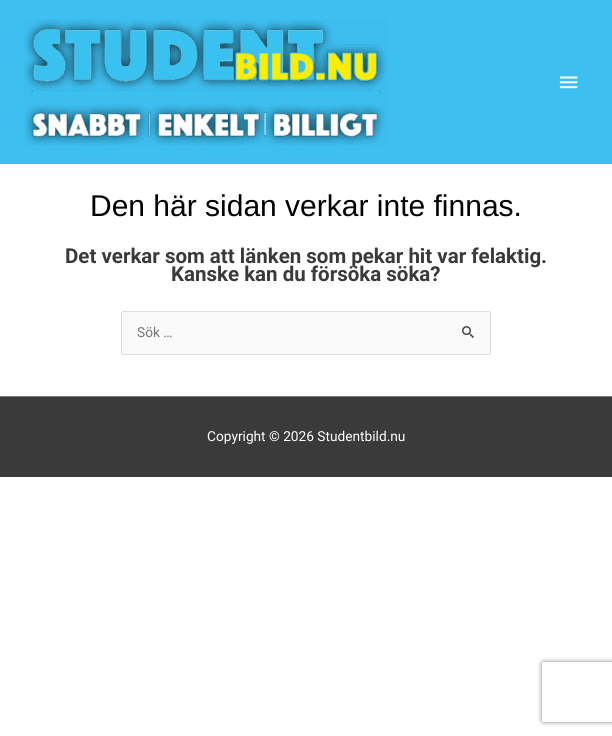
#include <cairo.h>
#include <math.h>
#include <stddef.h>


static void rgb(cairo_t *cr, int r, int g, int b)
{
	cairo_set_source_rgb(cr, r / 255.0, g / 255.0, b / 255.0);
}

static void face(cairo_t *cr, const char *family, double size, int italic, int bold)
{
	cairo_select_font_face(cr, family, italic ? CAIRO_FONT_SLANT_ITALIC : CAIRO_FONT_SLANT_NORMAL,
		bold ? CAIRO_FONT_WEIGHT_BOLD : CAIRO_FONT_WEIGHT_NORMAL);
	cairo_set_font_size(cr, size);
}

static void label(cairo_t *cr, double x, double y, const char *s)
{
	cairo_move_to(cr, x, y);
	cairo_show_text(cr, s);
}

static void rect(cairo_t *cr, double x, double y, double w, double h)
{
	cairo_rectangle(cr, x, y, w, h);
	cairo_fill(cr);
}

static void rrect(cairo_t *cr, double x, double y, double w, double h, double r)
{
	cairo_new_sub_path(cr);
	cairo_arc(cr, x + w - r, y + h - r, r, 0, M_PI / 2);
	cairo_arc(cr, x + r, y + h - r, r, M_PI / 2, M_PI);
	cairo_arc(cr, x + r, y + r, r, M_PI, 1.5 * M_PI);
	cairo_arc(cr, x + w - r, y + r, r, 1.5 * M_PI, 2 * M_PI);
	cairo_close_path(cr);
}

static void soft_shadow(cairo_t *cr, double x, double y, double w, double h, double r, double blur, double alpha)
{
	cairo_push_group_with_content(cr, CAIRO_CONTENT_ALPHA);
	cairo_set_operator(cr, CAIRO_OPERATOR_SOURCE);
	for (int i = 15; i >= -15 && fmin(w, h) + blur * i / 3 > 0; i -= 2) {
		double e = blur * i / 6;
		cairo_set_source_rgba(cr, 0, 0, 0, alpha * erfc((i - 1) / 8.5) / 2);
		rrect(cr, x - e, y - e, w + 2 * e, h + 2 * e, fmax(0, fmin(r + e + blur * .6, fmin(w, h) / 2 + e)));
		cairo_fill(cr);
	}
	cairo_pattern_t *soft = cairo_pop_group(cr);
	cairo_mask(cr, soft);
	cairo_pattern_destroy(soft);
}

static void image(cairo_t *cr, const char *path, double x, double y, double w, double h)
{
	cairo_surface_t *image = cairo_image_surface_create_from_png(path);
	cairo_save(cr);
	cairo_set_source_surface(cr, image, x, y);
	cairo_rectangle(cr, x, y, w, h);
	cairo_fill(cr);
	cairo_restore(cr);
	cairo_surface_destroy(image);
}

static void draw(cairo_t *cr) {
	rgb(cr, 255, 255, 255);
	cairo_paint(cr);
	rgb(cr, 61, 191, 240);
	rect(cr, 0, 0, 612, 164);
	image(cr, "image0.png", 24, 19, 363, 127);
	image(cr, "image1.png", 559, 76, 19, 13);
	face(cr, "Liberation Sans", 30, 0, 0);
	rgb(cr, 0, 0, 0);
	label(cr, 90, 216, "Den här sidan verkar inte finnas.");
	face(cr, "Roboto", 20.5, 0, 1);
	rgb(cr, 58, 58, 58);
	label(cr, 65, 263, "Det verkar som att länken som pekar hit var felaktig.");
	label(cr, 171, 281, "Kanske kan du försöka söka?");
	rgb(cr, 250, 250, 250);
	rrect(cr, 121.5, 311.5, 369, 43, 1.5);
	cairo_fill_preserve(cr);
	rgb(cr, 221, 221, 221);
	cairo_set_line_width(cr, 1);
	cairo_stroke(cr);
	face(cr, "Roboto", 13.7, 0, 0);
	rgb(cr, 117, 117, 117);
	label(cr, 137, 337, "Sök …");
	image(cr, "image2.png", 462, 326, 12, 12);
	rgb(cr, 122, 122, 122);
	rect(cr, 0, 396, 612, 1);
	rgb(cr, 58, 58, 58);
	rect(cr, 0, 397, 612, 80);
	rgb(cr, 255, 255, 255);
	label(cr, 207, 441, "Copyright © 2026 Studentbild.nu");
	cairo_save(cr);
	cairo_set_fill_rule(cr, CAIRO_FILL_RULE_EVEN_ODD);
	cairo_new_path(cr);
	cairo_move_to(cr, 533, 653);
	cairo_line_to(cr, 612, 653);
	cairo_line_to(cr, 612, 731);
	cairo_line_to(cr, 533, 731);
	cairo_close_path(cr);
	cairo_move_to(cr, 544, 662);
	cairo_line_to(cr, 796, 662);
	cairo_curve_to(cr, 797, 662, 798, 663, 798, 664);
	cairo_line_to(cr, 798, 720);
	cairo_curve_to(cr, 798, 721, 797, 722, 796, 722);
	cairo_line_to(cr, 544, 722);
	cairo_curve_to(cr, 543, 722, 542, 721, 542, 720);
	cairo_line_to(cr, 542, 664);
	cairo_curve_to(cr, 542, 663, 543, 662, 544, 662);
	cairo_close_path(cr);
	cairo_clip(cr);
	rgb(cr, 128, 128, 128);
	soft_shadow(cr, 542, 662, 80, 60, 2, 2.5, 1);
	cairo_restore(cr);
}

int main(void) {
	cairo_surface_t *surface = cairo_image_surface_create(CAIRO_FORMAT_RGB24, 612, 736);
	cairo_t *cr = cairo_create(surface);
	cairo_font_options_t *options = cairo_font_options_create();
	cairo_font_options_set_hint_metrics(options, CAIRO_HINT_METRICS_OFF);
	cairo_font_options_set_hint_style(options, CAIRO_HINT_STYLE_NONE);
	cairo_set_font_options(cr, options);
	cairo_set_miter_limit(cr, 4);
	draw(cr);
	cairo_surface_write_to_png(surface, "render.png");
	cairo_font_options_destroy(options);
	cairo_destroy(cr);
	cairo_surface_destroy(surface);
	return 0;
}
